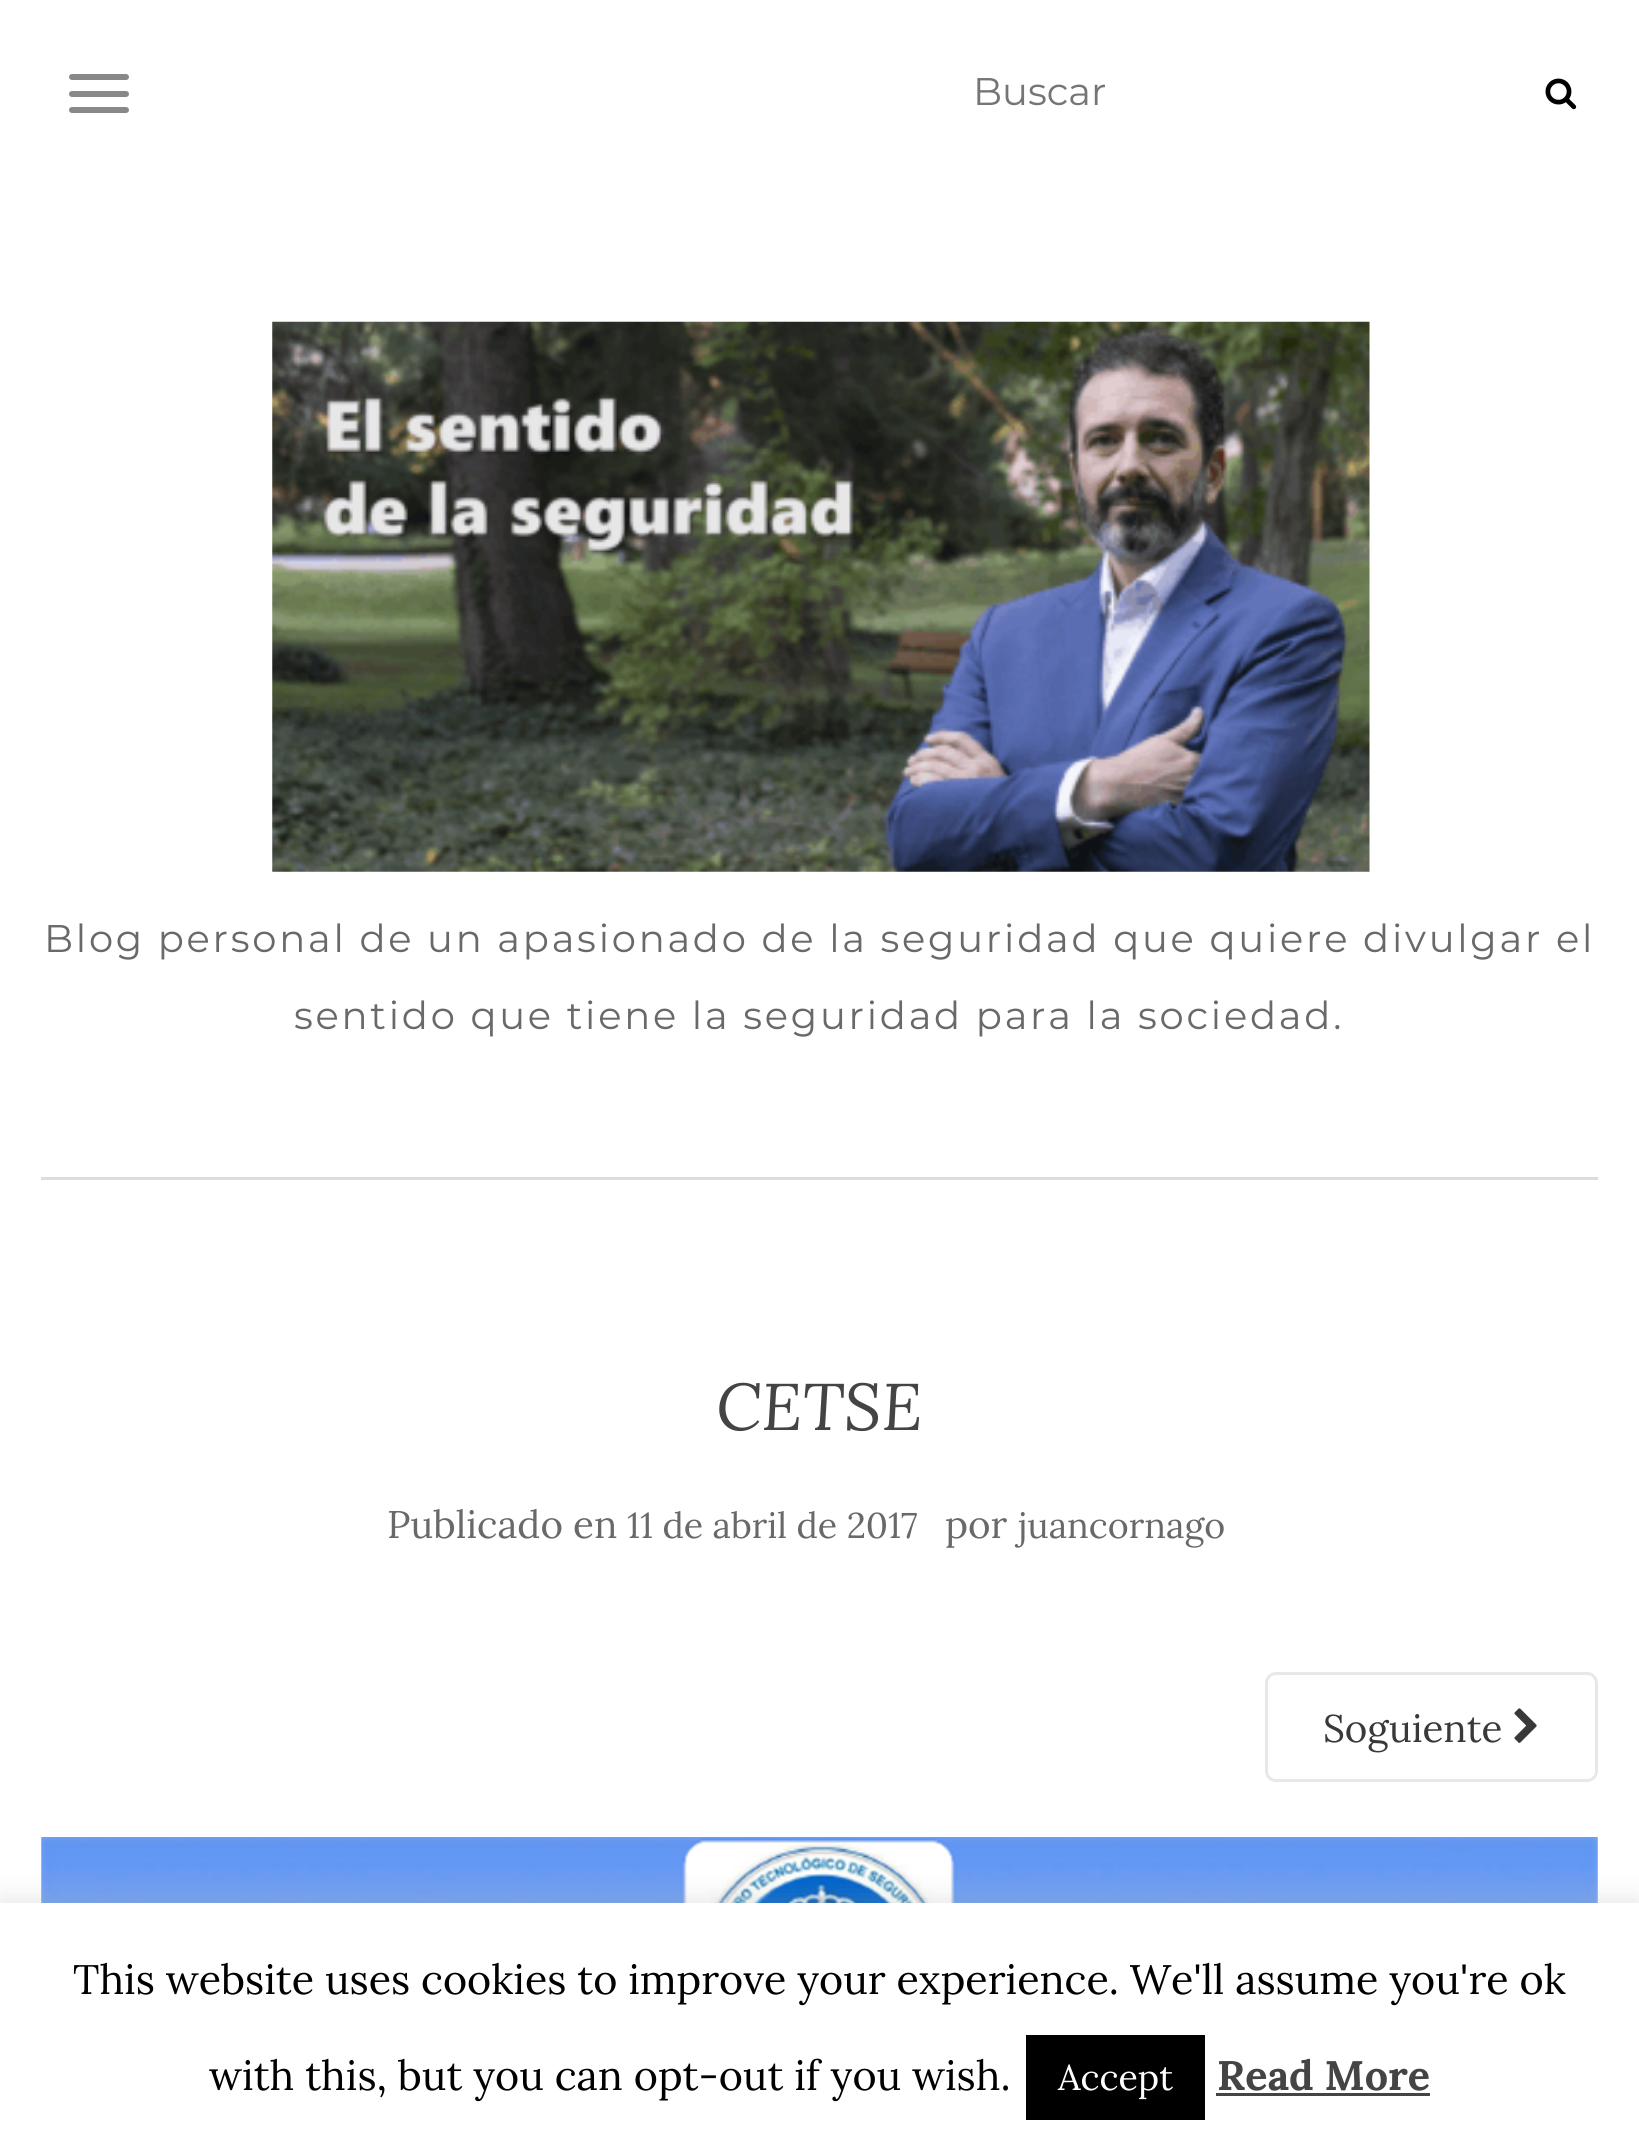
#include <cairo.h>
#include <math.h>
#include <stddef.h>


static void rgb(cairo_t *cr, int r, int g, int b)
{
	cairo_set_source_rgb(cr, r / 255.0, g / 255.0, b / 255.0);
}

static void face(cairo_t *cr, const char *family, double size, int italic, int bold)
{
	cairo_select_font_face(cr, family, italic ? CAIRO_FONT_SLANT_ITALIC : CAIRO_FONT_SLANT_NORMAL,
		bold ? CAIRO_FONT_WEIGHT_BOLD : CAIRO_FONT_WEIGHT_NORMAL);
	cairo_set_font_size(cr, size);
}

static void label(cairo_t *cr, double x, double y, const char *s)
{
	cairo_move_to(cr, x, y);
	cairo_show_text(cr, s);
}

static void tracked(cairo_t *cr, double x, double y, const char *s, double letter, double word)
{
	cairo_move_to(cr, x, y);
	while (*s) {
		char ch[5] = {0};
		int n = 0;
		do ch[n++] = *s++; while ((*s & 0xC0) == 0x80);
		cairo_show_text(cr, ch);
		cairo_rel_move_to(cr, letter + word * (*ch == ' '), 0);
	}
}

static void rect(cairo_t *cr, double x, double y, double w, double h)
{
	cairo_rectangle(cr, x, y, w, h);
	cairo_fill(cr);
}

static void rrect(cairo_t *cr, double x, double y, double w, double h, double r)
{
	cairo_new_sub_path(cr);
	cairo_arc(cr, x + w - r, y + h - r, r, 0, M_PI / 2);
	cairo_arc(cr, x + r, y + h - r, r, M_PI / 2, M_PI);
	cairo_arc(cr, x + r, y + r, r, M_PI, 1.5 * M_PI);
	cairo_arc(cr, x + w - r, y + r, r, 1.5 * M_PI, 2 * M_PI);
	cairo_close_path(cr);
}

static void soft_shadow(cairo_t *cr, double x, double y, double w, double h, double r, double blur, double alpha)
{
	cairo_push_group_with_content(cr, CAIRO_CONTENT_ALPHA);
	cairo_set_operator(cr, CAIRO_OPERATOR_SOURCE);
	for (int i = 15; i >= -15 && fmin(w, h) + blur * i / 3 > 0; i -= 2) {
		double e = blur * i / 6;
		cairo_set_source_rgba(cr, 0, 0, 0, alpha * erfc((i - 1) / 8.5) / 2);
		rrect(cr, x - e, y - e, w + 2 * e, h + 2 * e, fmax(0, fmin(r + e + blur * .6, fmin(w, h) / 2 + e)));
		cairo_fill(cr);
	}
	cairo_pattern_t *soft = cairo_pop_group(cr);
	cairo_mask(cr, soft);
	cairo_pattern_destroy(soft);
}

static void image(cairo_t *cr, const char *path, double x, double y, double w, double h)
{
	cairo_surface_t *image = cairo_image_surface_create_from_png(path);
	cairo_save(cr);
	cairo_set_source_surface(cr, image, x, y);
	cairo_rectangle(cr, x, y, w, h);
	cairo_fill(cr);
	cairo_restore(cr);
	cairo_surface_destroy(image);
}

static void draw(cairo_t *cr) {
	rgb(cr, 255, 255, 255);
	cairo_paint(cr);
	rgb(cr, 136, 136, 136);
	rrect(cr, 69, 74, 60, 6, 3);
	cairo_fill(cr);
	rrect(cr, 69, 91, 60, 6, 3);
	cairo_fill(cr);
	rrect(cr, 69, 107, 60, 6, 3);
	cairo_fill(cr);
	face(cr, "Montserrat", 38.5, 0, 0);
	rgb(cr, 117, 117, 117);
	label(cr, 973, 105, "Buscar");
	image(cr, "image0.png", 1545, 78, 32, 32);
	image(cr, "image1.png", 272, 321, 1098, 551);
	rgb(cr, 105, 105, 105);
	tracked(cr, 44, 952, "Blog personal de un apasionado de la seguridad que quiere divulgar el", 2.75, 0);
	tracked(cr, 294, 1029, "sentido que tiene la seguridad para la sociedad.", 2.75, 0);
	rgb(cr, 221, 221, 221);
	rect(cr, 41, 1177, 1557, 3);
	face(cr, "Lora", 66, 1, 0);
	rgb(cr, 68, 68, 68);
	label(cr, 716, 1430, "CETSE");
	face(cr, "Lora", 38.5, 0, 0);
	rgb(cr, 105, 105, 105);
	label(cr, 387, 1538, "Publicado en");
	face(cr, "Lora", 35.75, 0, 0);
	label(cr, 627, 1538, "11 de abril de 2017");
	face(cr, "Lora", 38.5, 0, 0);
	label(cr, 945, 1538, "por");
	face(cr, "Lora", 35.75, 0, 0);
	label(cr, 1018, 1538, "juancornago");
	rrect(cr, 1266.5, 1673.5, 330, 107, 9.5);
	rgb(cr, 232, 232, 232);
	cairo_set_line_width(cr, 3);
	cairo_stroke(cr);
	face(cr, "Lora", 38.5, 0, 0);
	rgb(cr, 57, 57, 57);
	label(cr, 1323, 1742, "Soguiente");
	image(cr, "image2.png", 1514, 1708, 23, 35);
	image(cr, "image3.png", 41, 1837, 1557, 66);
	rgb(cr, 172, 171, 171);
	soft_shadow(cr, 0, 1900, 1639, 251, 0, 14, 0.3);
	rgb(cr, 255, 255, 255);
	rect(cr, 0, 1903, 1639, 248);
	face(cr, "Lora", 41.25, 0, 0);
	rgb(cr, 0, 0, 0);
	label(cr, 73, 1994, "This website uses cookies to improve your experience. We'll assume you're ok");
	label(cr, 209, 2090, "with this, but you can opt-out if you wish.");
	rect(cr, 1026, 2035, 179, 85);
	face(cr, "Lora", 35.75, 0, 0);
	rgb(cr, 255, 255, 255);
	label(cr, 1058, 2090, "Accept");
	face(cr, "Lora", 41.25, 0, 1);
	rgb(cr, 68, 68, 68);
	label(cr, 1217, 2090, "Read More");
	rect(cr, 1216, 2093, 214, 3);
}

int main(void) {
	cairo_surface_t *surface = cairo_image_surface_create(CAIRO_FORMAT_RGB24, 1639, 2151);
	cairo_t *cr = cairo_create(surface);
	cairo_font_options_t *options = cairo_font_options_create();
	cairo_font_options_set_hint_metrics(options, CAIRO_HINT_METRICS_OFF);
	cairo_font_options_set_hint_style(options, CAIRO_HINT_STYLE_NONE);
	cairo_set_font_options(cr, options);
	cairo_set_miter_limit(cr, 4);
	draw(cr);
	cairo_surface_write_to_png(surface, "render.png");
	cairo_font_options_destroy(options);
	cairo_destroy(cr);
	cairo_surface_destroy(surface);
	return 0;
}
